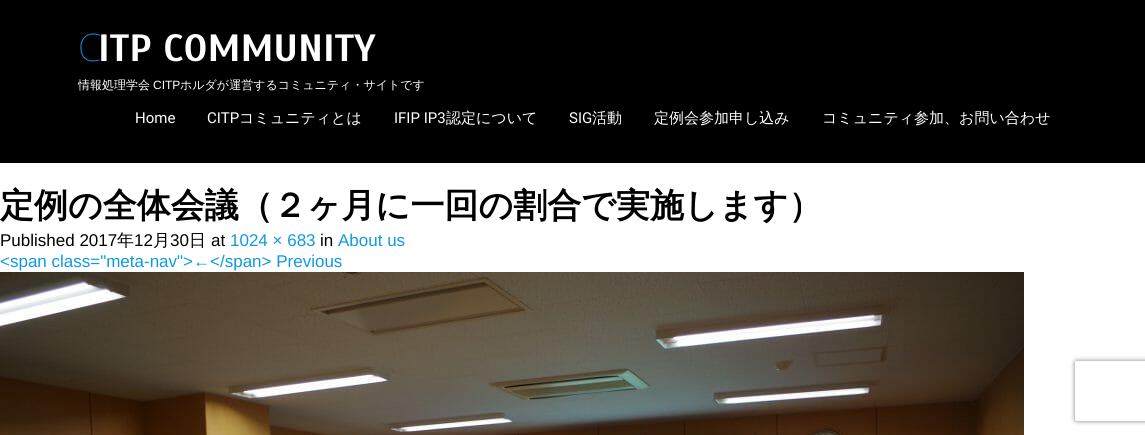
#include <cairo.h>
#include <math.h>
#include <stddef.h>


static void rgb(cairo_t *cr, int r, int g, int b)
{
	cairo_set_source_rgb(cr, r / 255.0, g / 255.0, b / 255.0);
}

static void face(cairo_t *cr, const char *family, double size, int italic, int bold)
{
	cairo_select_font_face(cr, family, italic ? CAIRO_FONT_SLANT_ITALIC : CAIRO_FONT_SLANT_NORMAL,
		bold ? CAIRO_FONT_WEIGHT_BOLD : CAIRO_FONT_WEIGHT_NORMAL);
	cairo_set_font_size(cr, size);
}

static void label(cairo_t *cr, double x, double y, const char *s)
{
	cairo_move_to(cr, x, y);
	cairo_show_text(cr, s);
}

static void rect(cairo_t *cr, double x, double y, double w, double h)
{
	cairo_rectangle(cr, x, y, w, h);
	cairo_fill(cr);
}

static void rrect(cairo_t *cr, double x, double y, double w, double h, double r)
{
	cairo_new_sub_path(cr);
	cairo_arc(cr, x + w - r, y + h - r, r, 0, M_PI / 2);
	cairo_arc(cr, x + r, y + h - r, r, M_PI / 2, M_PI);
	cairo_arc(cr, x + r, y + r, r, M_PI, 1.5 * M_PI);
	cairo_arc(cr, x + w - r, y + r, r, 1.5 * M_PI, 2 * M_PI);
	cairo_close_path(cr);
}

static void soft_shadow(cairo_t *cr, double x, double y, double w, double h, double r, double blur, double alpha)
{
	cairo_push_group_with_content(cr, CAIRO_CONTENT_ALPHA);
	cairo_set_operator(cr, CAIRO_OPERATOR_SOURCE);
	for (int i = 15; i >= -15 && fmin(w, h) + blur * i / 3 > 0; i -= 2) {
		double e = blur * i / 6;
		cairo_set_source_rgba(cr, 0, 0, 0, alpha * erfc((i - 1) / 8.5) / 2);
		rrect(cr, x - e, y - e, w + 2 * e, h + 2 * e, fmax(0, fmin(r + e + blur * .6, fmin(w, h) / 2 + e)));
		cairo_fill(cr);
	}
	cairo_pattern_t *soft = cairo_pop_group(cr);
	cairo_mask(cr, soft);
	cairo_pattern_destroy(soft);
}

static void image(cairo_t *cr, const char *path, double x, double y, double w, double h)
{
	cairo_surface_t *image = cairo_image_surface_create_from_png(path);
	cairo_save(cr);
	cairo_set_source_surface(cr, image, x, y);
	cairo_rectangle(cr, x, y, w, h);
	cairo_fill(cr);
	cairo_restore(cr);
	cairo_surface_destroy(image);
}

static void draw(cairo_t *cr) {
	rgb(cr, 255, 255, 255);
	cairo_paint(cr);
	rgb(cr, 0, 0, 0);
	rect(cr, 0, 0, 1145, 163);
	face(cr, "Noto Sans Thin", 38, 0, 0);
	rgb(cr, 15, 154, 224);
	label(cr, 78, 61, "C");
	face(cr, "Scada", 38, 0, 1);
	rgb(cr, 255, 255, 255);
	label(cr, 98, 61, "ITP COMMUNITY");
	face(cr, "WenQuanYi Zen Hei Medium", 12, 0, 0);
	label(cr, 78, 89, "情報処理学会");
	face(cr, "Liberation Sans", 12, 0, 0);
	label(cr, 153, 89, "CITP");
	face(cr, "WenQuanYi Zen Hei Medium", 12, 0, 0);
	label(cr, 180, 89, "ホルダが運営するコミュニティ・サイトです");
	face(cr, "Roboto", 15, 0, 0);
	label(cr, 135, 123, "Home");
	label(cr, 207, 123, "CITP");
	face(cr, "WenQuanYi Zen Hei Medium", 15, 0, 0);
	label(cr, 239, 123, "コミュニティとは");
	face(cr, "Roboto", 15, 0, 0);
	label(cr, 394, 123, "IFIP IP3");
	face(cr, "WenQuanYi Zen Hei Medium", 15, 0, 0);
	label(cr, 446, 123, "認定について");
	face(cr, "Roboto", 15, 0, 0);
	label(cr, 569, 123, "SIG");
	face(cr, "WenQuanYi Zen Hei Medium", 15, 0, 0);
	label(cr, 592, 123, "活動");
	label(cr, 654, 123, "定例会参加申し込み");
	label(cr, 822, 123, "コミュニティ参加、お問い合わせ");
	face(cr, "WenQuanYi Zen Hei", 34, 0, 1);
	rgb(cr, 0, 0, 0);
	label(cr, 0, 217, "定例の全体会議（２ヶ月に一回の割合で実施します）");
	face(cr, "Liberation Sans", 17, 0, 0);
	label(cr, 0, 246, "Published 2017");
	face(cr, "WenQuanYi Zen Hei Medium", 17, 0, 0);
	label(cr, 117, 246, "年");
	face(cr, "Liberation Sans", 17, 0, 0);
	label(cr, 134, 246, "12");
	face(cr, "WenQuanYi Zen Hei Medium", 17, 0, 0);
	label(cr, 153, 246, "月");
	face(cr, "Liberation Sans", 17, 0, 0);
	label(cr, 170, 246, "30");
	face(cr, "WenQuanYi Zen Hei Medium", 17, 0, 0);
	label(cr, 189, 246, "日");
	face(cr, "Liberation Sans", 17, 0, 0);
	label(cr, 211, 246, "at");
	rgb(cr, 15, 154, 224);
	label(cr, 230, 246, "1024 × 683");
	rgb(cr, 0, 0, 0);
	label(cr, 320, 246, "in");
	rgb(cr, 15, 154, 224);
	label(cr, 338, 246, "About us");
	label(cr, 0, 267, "<span class=\"meta-nav\">←</span> Previous");
	image(cr, "image0.png", 0, 272, 1024, 163);
	cairo_save(cr);
	cairo_set_fill_rule(cr, CAIRO_FILL_RULE_EVEN_ODD);
	cairo_new_path(cr);
	cairo_move_to(cr, 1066, 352);
	cairo_line_to(cr, 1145, 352);
	cairo_line_to(cr, 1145, 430);
	cairo_line_to(cr, 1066, 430);
	cairo_close_path(cr);
	cairo_move_to(cr, 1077, 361);
	cairo_line_to(cr, 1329, 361);
	cairo_curve_to(cr, 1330, 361, 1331, 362, 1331, 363);
	cairo_line_to(cr, 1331, 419);
	cairo_curve_to(cr, 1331, 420, 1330, 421, 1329, 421);
	cairo_line_to(cr, 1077, 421);
	cairo_curve_to(cr, 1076, 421, 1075, 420, 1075, 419);
	cairo_line_to(cr, 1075, 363);
	cairo_curve_to(cr, 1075, 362, 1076, 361, 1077, 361);
	cairo_close_path(cr);
	cairo_clip(cr);
	rgb(cr, 128, 128, 128);
	soft_shadow(cr, 1075, 361, 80, 60, 2, 2.5, 1);
	cairo_restore(cr);
}

int main(void) {
	cairo_surface_t *surface = cairo_image_surface_create(CAIRO_FORMAT_RGB24, 1145, 435);
	cairo_t *cr = cairo_create(surface);
	cairo_font_options_t *options = cairo_font_options_create();
	cairo_font_options_set_hint_metrics(options, CAIRO_HINT_METRICS_OFF);
	cairo_font_options_set_hint_style(options, CAIRO_HINT_STYLE_NONE);
	cairo_set_font_options(cr, options);
	cairo_set_miter_limit(cr, 4);
	draw(cr);
	cairo_surface_write_to_png(surface, "render.png");
	cairo_font_options_destroy(options);
	cairo_destroy(cr);
	cairo_surface_destroy(surface);
	return 0;
}
